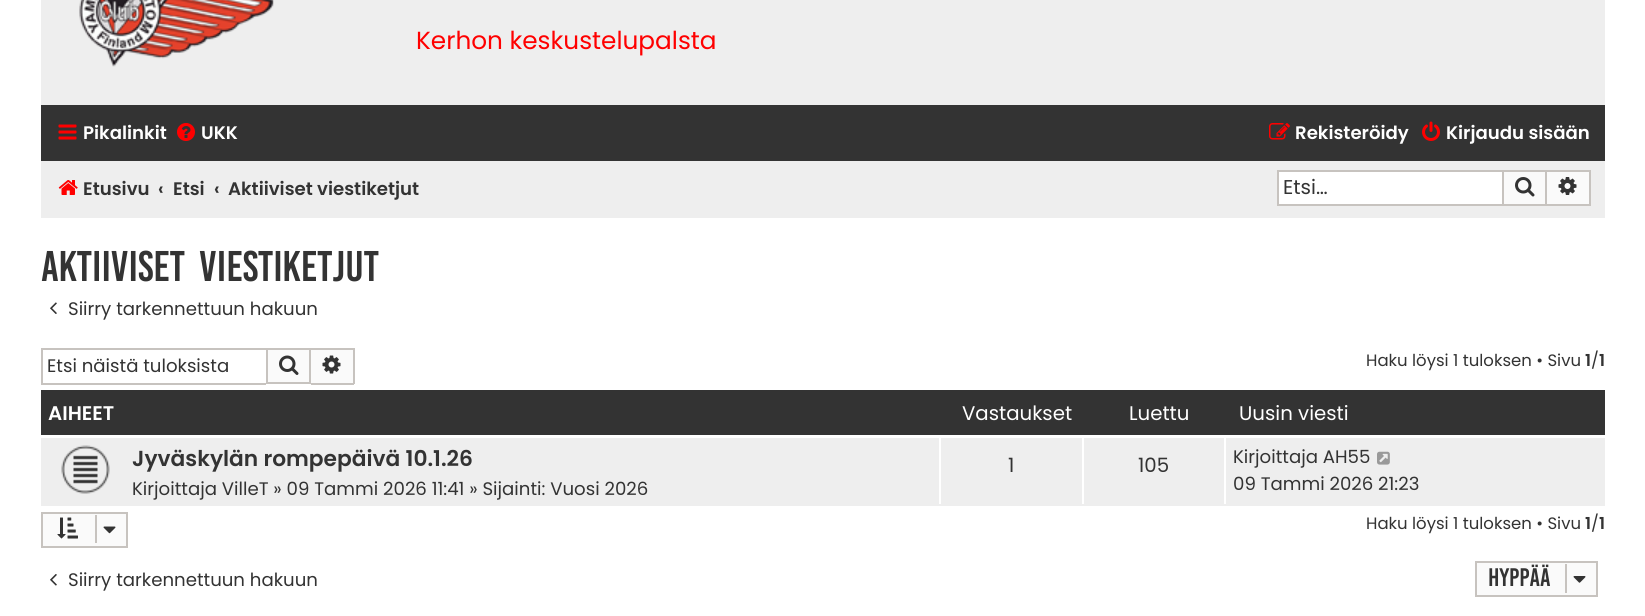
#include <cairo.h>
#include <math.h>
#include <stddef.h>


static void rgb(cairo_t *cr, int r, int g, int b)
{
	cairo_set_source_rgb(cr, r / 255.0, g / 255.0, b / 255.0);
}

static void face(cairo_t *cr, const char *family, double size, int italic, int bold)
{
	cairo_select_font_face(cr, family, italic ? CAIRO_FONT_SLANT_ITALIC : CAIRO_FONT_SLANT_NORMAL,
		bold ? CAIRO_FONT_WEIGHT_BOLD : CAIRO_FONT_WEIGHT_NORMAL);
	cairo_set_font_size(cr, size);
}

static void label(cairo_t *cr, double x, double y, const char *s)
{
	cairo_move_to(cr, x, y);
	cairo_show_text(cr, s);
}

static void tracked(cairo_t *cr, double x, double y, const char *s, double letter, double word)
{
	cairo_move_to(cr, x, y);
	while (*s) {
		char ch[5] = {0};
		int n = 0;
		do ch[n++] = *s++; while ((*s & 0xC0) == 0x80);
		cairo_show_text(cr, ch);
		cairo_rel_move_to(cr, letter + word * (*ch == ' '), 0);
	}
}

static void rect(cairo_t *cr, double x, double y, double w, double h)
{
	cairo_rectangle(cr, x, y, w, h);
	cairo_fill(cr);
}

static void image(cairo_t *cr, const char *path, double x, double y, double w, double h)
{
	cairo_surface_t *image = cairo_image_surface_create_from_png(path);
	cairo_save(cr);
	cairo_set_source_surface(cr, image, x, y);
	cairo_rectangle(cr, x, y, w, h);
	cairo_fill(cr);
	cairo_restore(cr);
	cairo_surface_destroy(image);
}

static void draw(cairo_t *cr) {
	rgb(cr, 255, 255, 255);
	cairo_paint(cr);
	rgb(cr, 238, 238, 238);
	rect(cr, 41, 0, 1564, 105);
	image(cr, "image0.png", 79, 0, 195, 67);
	face(cr, "Poppins", 24.75, 0, 0);
	rgb(cr, 255, 0, 0);
	label(cr, 416, 49, "Kerhon keskustelupalsta");
	rgb(cr, 51, 51, 51);
	rect(cr, 41, 105, 1564, 56);
	image(cr, "image1.png", 58, 124, 19, 16);
	face(cr, "Poppins SemiBold", 18.15, 0, 0);
	rgb(cr, 255, 255, 255);
	label(cr, 83, 139, "Pikalinkit");
	image(cr, "image2.png", 177, 123, 18, 18);
	label(cr, 201, 139, "UKK");
	image(cr, "image3.png", 1269, 123, 21, 17);
	label(cr, 1295, 139, "Rekisteröidy");
	image(cr, "image4.png", 1422, 121, 18, 20);
	label(cr, 1446, 139, "Kirjaudu sisään");
	rgb(cr, 238, 238, 238);
	rect(cr, 41, 161, 1564, 57);
	image(cr, "image5.png", 58, 180, 20, 15);
	rgb(cr, 51, 51, 51);
	label(cr, 83, 195, "Etusivu");
	label(cr, 158, 195, "‹");
	label(cr, 173, 195, "Etsi");
	label(cr, 214, 195, "‹");
	label(cr, 228, 195, "Aktiiviset viestiketjut");
	rgb(cr, 255, 255, 255);
	rect(cr, 1279, 172, 223, 32);
	rgb(cr, 199, 195, 191);
	rect(cr, 1277, 170, 225, 2);
	rect(cr, 1277, 204, 225, 2);
	rect(cr, 1277, 170, 2, 36);
	face(cr, "Poppins", 20, 0, 0);
	rgb(cr, 51, 51, 51);
	label(cr, 1283, 194, "Etsi…");
	rgb(cr, 250, 250, 250);
	cairo_rectangle(cr, 1503, 171, 43, 34);
	cairo_fill_preserve(cr);
	rgb(cr, 199, 195, 191);
	cairo_stroke(cr);
	image(cr, "image6.png", 1515, 177, 20, 20);
	rgb(cr, 250, 250, 250);
	rect(cr, 1547, 172, 42, 32);
	rgb(cr, 199, 195, 191);
	rect(cr, 1547, 170, 43, 2);
	rect(cr, 1589, 170, 2, 36);
	rect(cr, 1547, 204, 43, 2);
	image(cr, "image7.png", 1558, 177, 19, 18);
	face(cr, "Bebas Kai", 33, 0, 0);
	rgb(cr, 51, 51, 51);
	tracked(cr, 41, 281, "Aktiiviset viestiketjut", 0, 6);
	image(cr, "image8.png", 50, 302, 7, 12);
	face(cr, "Poppins", 18.15, 0, 0);
	label(cr, 68, 315, "Siirry tarkennettuun hakuun");
	rgb(cr, 199, 195, 191);
	rect(cr, 41, 348, 225, 2);
	rect(cr, 41, 383, 225, 2);
	rect(cr, 41, 348, 2, 36);
	rgb(cr, 51, 51, 51);
	label(cr, 47, 372, "Etsi näistä tuloksista");
	rgb(cr, 250, 250, 250);
	cairo_rectangle(cr, 267, 349, 43, 34);
	cairo_fill_preserve(cr);
	rgb(cr, 199, 195, 191);
	cairo_stroke(cr);
	image(cr, "image9.png", 279, 355, 20, 20);
	rgb(cr, 250, 250, 250);
	rect(cr, 311, 350, 42, 33);
	rgb(cr, 199, 195, 191);
	rect(cr, 311, 348, 43, 2);
	rect(cr, 353, 348, 2, 36);
	rect(cr, 311, 383, 43, 2);
	image(cr, "image10.png", 322, 355, 19, 19);
	face(cr, "Poppins", 16.5, 0, 0);
	rgb(cr, 51, 51, 51);
	label(cr, 1366, 366, "Haku löysi 1 tuloksen • Sivu");
	face(cr, "Poppins SemiBold", 16.5, 0, 0);
	label(cr, 1585, 366, "1");
	face(cr, "Poppins", 16.5, 0, 0);
	label(cr, 1591, 366, "/");
	face(cr, "Poppins SemiBold", 16.5, 0, 0);
	label(cr, 1599, 366, "1");
	rect(cr, 41, 390, 1564, 45);
	face(cr, "Poppins SemiBold", 19.75, 0, 0);
	rgb(cr, 255, 255, 255);
	label(cr, 48, 420, "AIHEET");
	face(cr, "Poppins", 19.75, 0, 0);
	label(cr, 962, 420, "Vastaukset");
	label(cr, 1129, 420, "Luettu");
	label(cr, 1239, 420, "Uusin viesti");
	rgb(cr, 238, 238, 238);
	rect(cr, 41, 438, 1564, 68);
	image(cr, "image11.png", 61, 445, 49, 49);
	face(cr, "Poppins SemiBold", 21.75, 0, 0);
	rgb(cr, 51, 51, 51);
	label(cr, 132, 466, "Jyväskylän rompepäivä 10.1.26");
	face(cr, "Poppins", 18.15, 0, 0);
	label(cr, 132, 495, "Kirjoittaja VilleT » 09 Tammi 2026 11:41 » Sijainti: Vuosi 2026");
	rgb(cr, 255, 255, 255);
	rect(cr, 939, 438, 2, 66);
	face(cr, "Poppins", 19.75, 0, 0);
	rgb(cr, 51, 51, 51);
	label(cr, 1008, 472, "1");
	rgb(cr, 255, 255, 255);
	rect(cr, 1082, 438, 2, 66);
	rgb(cr, 51, 51, 51);
	label(cr, 1138, 472, "105");
	rgb(cr, 255, 255, 255);
	rect(cr, 1224, 438, 2, 66);
	face(cr, "Poppins", 18.15, 0, 0);
	rgb(cr, 51, 51, 51);
	label(cr, 1233, 463, "Kirjoittaja AH55");
	image(cr, "image12.png", 1377, 451, 13, 14);
	label(cr, 1233, 490, "09 Tammi 2026 21:23");
	rgb(cr, 250, 250, 250);
	cairo_rectangle(cr, 42, 513, 85, 34);
	cairo_fill_preserve(cr);
	rgb(cr, 199, 195, 191);
	cairo_stroke(cr);
	image(cr, "image13.png", 57, 517, 21, 22);
	rect(cr, 95, 515, 2, 28);
	image(cr, "image14.png", 103, 526, 13, 8);
	face(cr, "Poppins", 16.5, 0, 0);
	rgb(cr, 51, 51, 51);
	label(cr, 1366, 529, "Haku löysi 1 tuloksen • Sivu");
	face(cr, "Poppins SemiBold", 16.5, 0, 0);
	label(cr, 1585, 529, "1");
	face(cr, "Poppins", 16.5, 0, 0);
	label(cr, 1591, 529, "/");
	face(cr, "Poppins SemiBold", 16.5, 0, 0);
	label(cr, 1599, 529, "1");
	image(cr, "image15.png", 50, 574, 7, 12);
	face(cr, "Poppins", 18.15, 0, 0);
	label(cr, 68, 586, "Siirry tarkennettuun hakuun");
	rgb(cr, 250, 250, 250);
	cairo_rectangle(cr, 1476, 562, 121, 34);
	cairo_fill_preserve(cr);
	rgb(cr, 199, 195, 191);
	cairo_stroke(cr);
	face(cr, "Bebas Kai", 19.5, 0, 0);
	rgb(cr, 51, 51, 51);
	label(cr, 1488, 586, "Hyppää");
	rgb(cr, 199, 195, 191);
	rect(cr, 1565, 564, 2, 29);
	image(cr, "image16.png", 1573, 576, 13, 7);
}

int main(void) {
	cairo_surface_t *surface = cairo_image_surface_create(CAIRO_FORMAT_RGB24, 1645, 616);
	cairo_t *cr = cairo_create(surface);
	cairo_font_options_t *options = cairo_font_options_create();
	cairo_font_options_set_hint_metrics(options, CAIRO_HINT_METRICS_OFF);
	cairo_font_options_set_hint_style(options, CAIRO_HINT_STYLE_NONE);
	cairo_set_font_options(cr, options);
	cairo_set_miter_limit(cr, 4);
	draw(cr);
	cairo_surface_write_to_png(surface, "render.png");
	cairo_font_options_destroy(options);
	cairo_destroy(cr);
	cairo_surface_destroy(surface);
	return 0;
}
